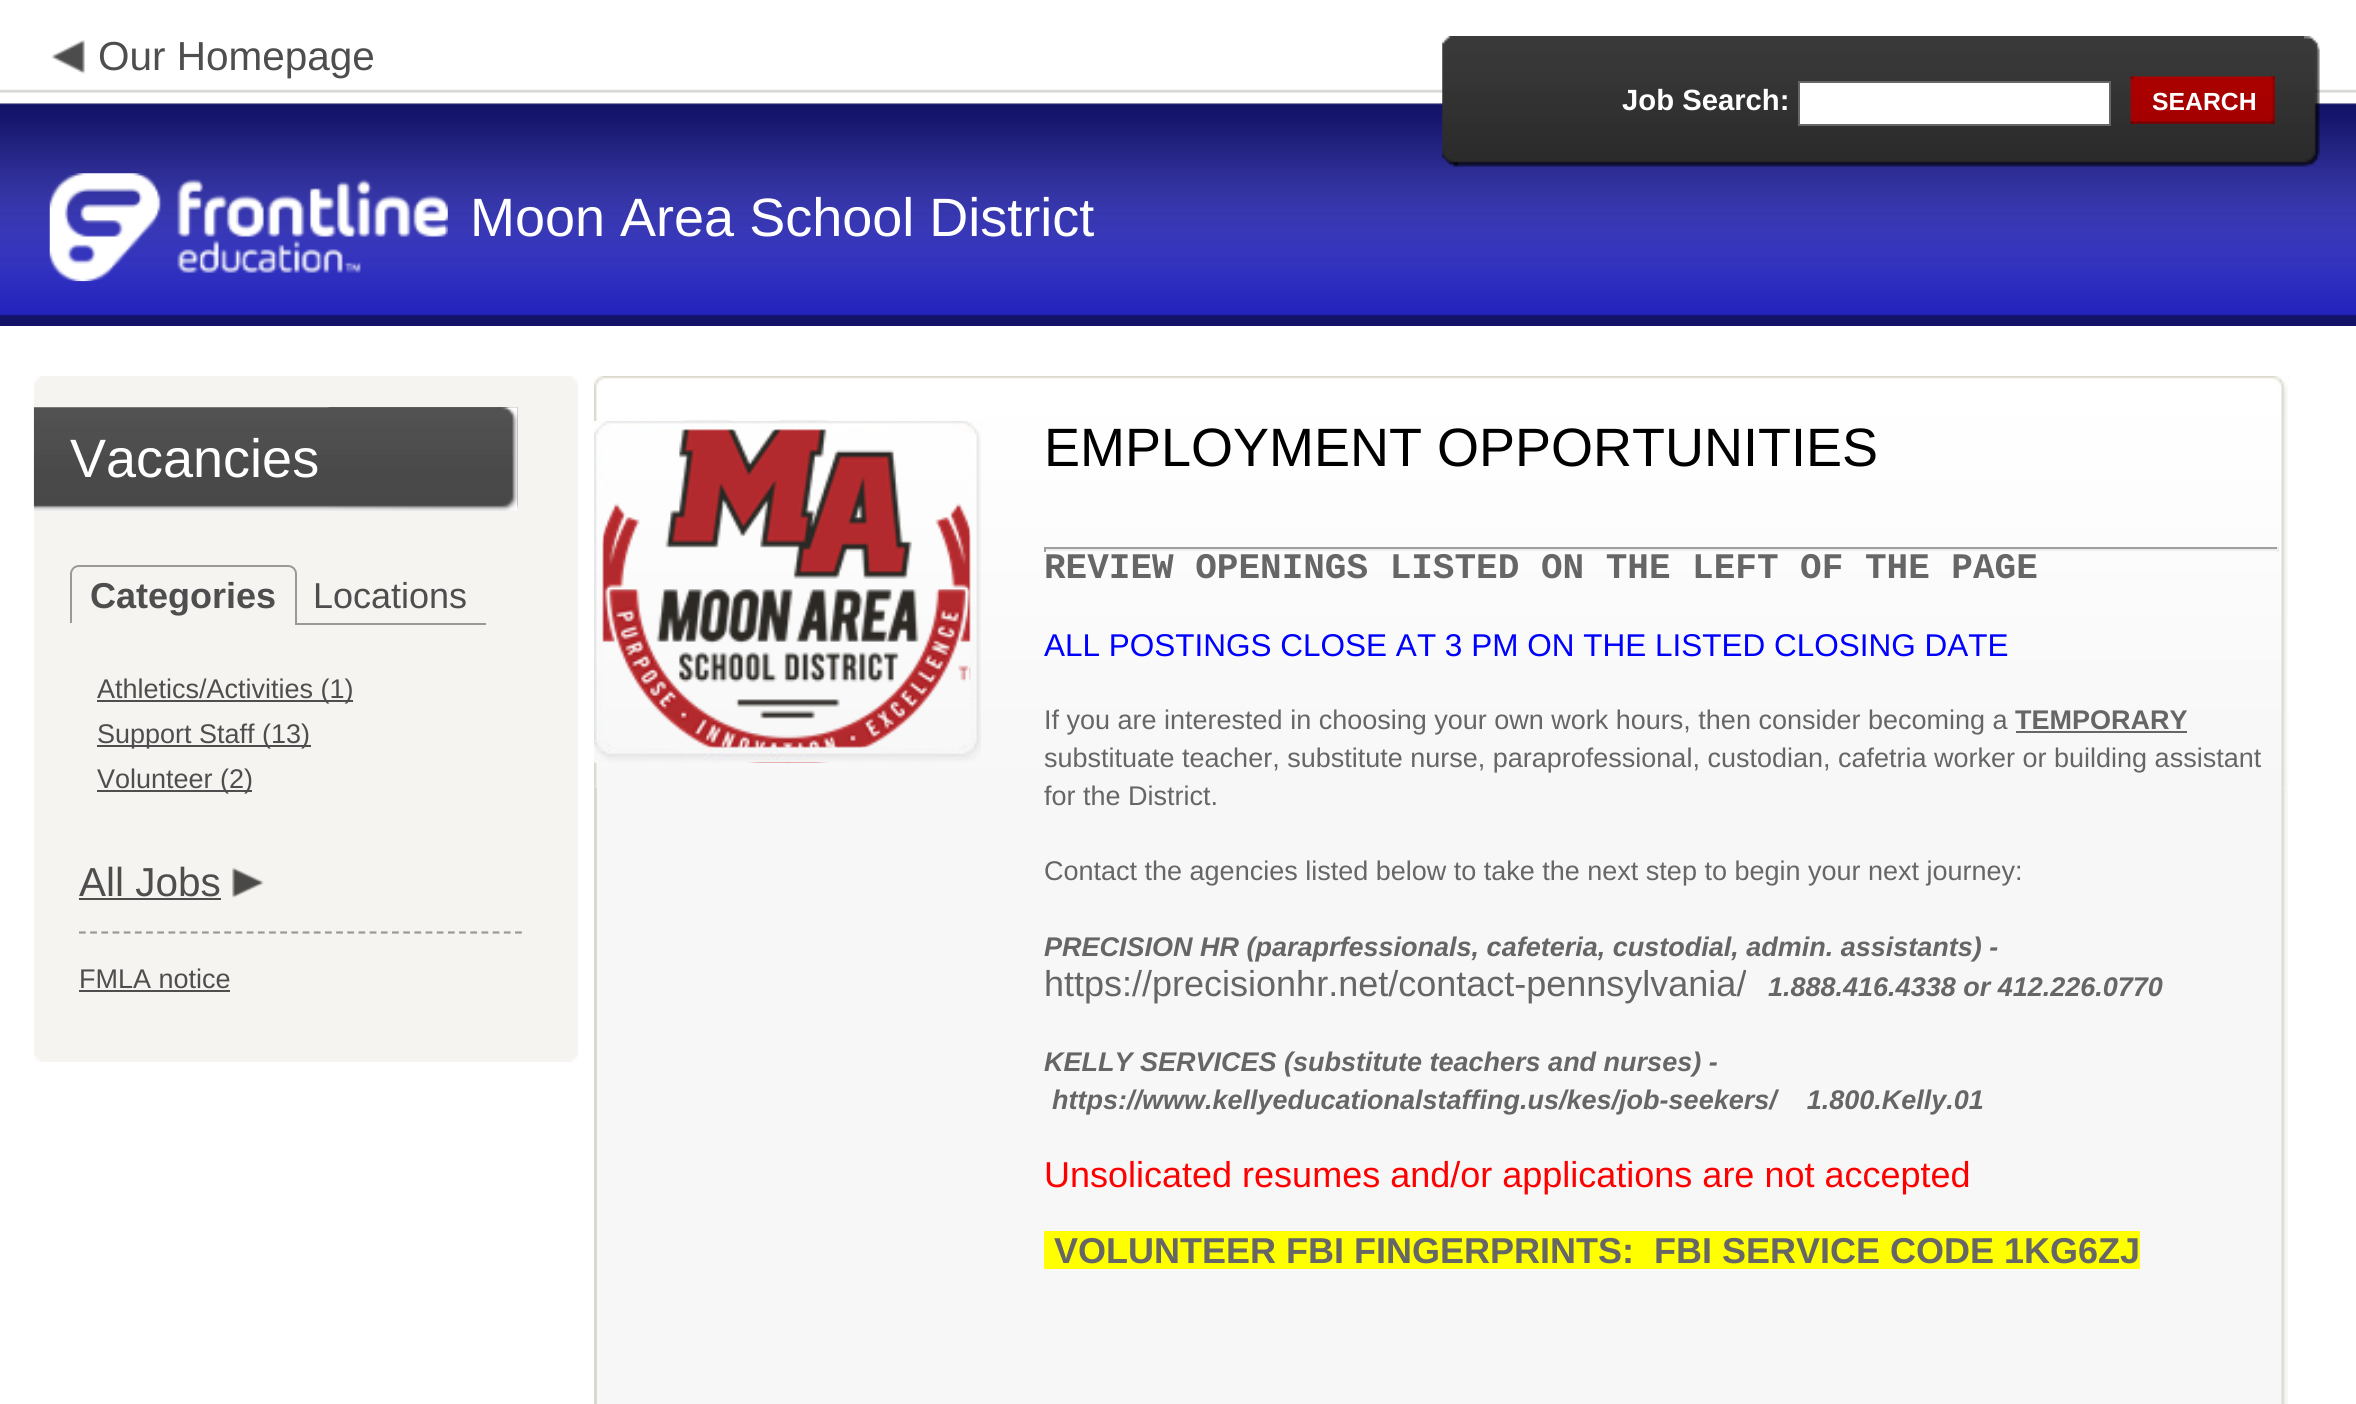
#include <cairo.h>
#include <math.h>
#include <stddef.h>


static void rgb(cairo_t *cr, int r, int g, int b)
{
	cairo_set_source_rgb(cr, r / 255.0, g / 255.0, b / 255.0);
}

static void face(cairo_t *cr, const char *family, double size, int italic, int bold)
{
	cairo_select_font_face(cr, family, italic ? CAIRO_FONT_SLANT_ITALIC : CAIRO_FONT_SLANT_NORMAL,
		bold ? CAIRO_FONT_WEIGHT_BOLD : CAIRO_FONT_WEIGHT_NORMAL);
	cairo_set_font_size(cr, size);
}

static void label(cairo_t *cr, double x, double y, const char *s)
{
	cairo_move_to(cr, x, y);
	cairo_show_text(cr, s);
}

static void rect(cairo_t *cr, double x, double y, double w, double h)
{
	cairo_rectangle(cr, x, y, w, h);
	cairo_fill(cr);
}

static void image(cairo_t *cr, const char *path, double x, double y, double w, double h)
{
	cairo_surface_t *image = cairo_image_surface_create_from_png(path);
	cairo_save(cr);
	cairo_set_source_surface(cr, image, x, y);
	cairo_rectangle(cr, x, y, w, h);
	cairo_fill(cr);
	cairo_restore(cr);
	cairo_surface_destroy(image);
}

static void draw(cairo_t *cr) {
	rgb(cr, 34, 34, 189);
	cairo_paint(cr);
	image(cr, "image0.png", 0, 0, 2356, 326);
	image(cr, "image1.png", 51, 40, 34, 34);
	face(cr, "Liberation Sans", 40.5, 0, 0);
	rgb(cr, 78, 78, 78);
	label(cr, 98, 70, "Our Homepage");
	image(cr, "image2.png", 49, 173, 399, 109);
	face(cr, "Liberation Sans", 54, 0, 0);
	rgb(cr, 255, 255, 255);
	label(cr, 470, 236, "Moon Area School District");
	image(cr, "image3.png", 1453, 36, 851, 131);
	image(cr, "image4.png", 2304, 36, 16, 131);
	image(cr, "image5.png", 1442, 36, 16, 131);
	face(cr, "Liberation Sans", 29.25, 0, 1);
	label(cr, 1622, 110, "Job Search:");
	cairo_rectangle(cr, 1799, 82, 311, 43);
	cairo_fill_preserve(cr);
	rgb(cr, 102, 102, 102);
	cairo_stroke(cr);
	image(cr, "image6.png", 2130, 76, 145, 48);
	image(cr, "image7.png", 2270, 76, 5, 48);
	image(cr, "image8.png", 2130, 76, 6, 48);
	face(cr, "Liberation Sans", 24.75, 0, 1);
	rgb(cr, 255, 255, 255);
	label(cr, 2152, 110, "SEARCH");
	rect(cr, 0, 326, 2356, 1078);
	rgb(cr, 246, 244, 241);
	rect(cr, 34, 376, 544, 686);
	image(cr, "image9.png", 571, 1055, 7, 7);
	image(cr, "image10.png", 34, 1055, 7, 7);
	image(cr, "image11.png", 571, 376, 7, 7);
	image(cr, "image12.png", 34, 376, 7, 7);
	image(cr, "image13.png", 33, 407, 485, 104);
	image(cr, "image14.png", 328, 407, 190, 104);
	face(cr, "Liberation Sans", 54, 0, 0);
	rgb(cr, 255, 255, 255);
	label(cr, 70, 477, "Vacancies");
	rgb(cr, 153, 153, 153);
	cairo_set_fill_rule(cr, CAIRO_FILL_RULE_EVEN_ODD);
	cairo_new_path(cr);
	cairo_move_to(cr, 79, 565);
	cairo_line_to(cr, 288, 565);
	cairo_curve_to(cr, 293, 565, 297, 569, 297, 574);
	cairo_line_to(cr, 297, 623);
	cairo_line_to(cr, 70, 623);
	cairo_line_to(cr, 70, 574);
	cairo_curve_to(cr, 70, 569, 74, 565, 79, 565);
	cairo_close_path(cr);
	cairo_move_to(cr, 79, 567);
	cairo_line_to(cr, 288, 567);
	cairo_curve_to(cr, 292, 567, 295, 570, 295, 574);
	cairo_line_to(cr, 295, 623);
	cairo_line_to(cr, 72, 623);
	cairo_line_to(cr, 72, 574);
	cairo_curve_to(cr, 72, 570, 75, 567, 79, 567);
	cairo_close_path(cr);
	cairo_fill(cr);
	face(cr, "Liberation Sans", 36, 0, 1);
	rgb(cr, 78, 78, 78);
	label(cr, 90, 608, "Categories");
	face(cr, "Liberation Sans", 36, 0, 0);
	label(cr, 313, 608, "Locations");
	rgb(cr, 153, 153, 153);
	rect(cr, 295, 623, 191, 2);
	rgb(cr, 78, 78, 78);
	rect(cr, 97, 700, 256, 2);
	face(cr, "Liberation Sans", 27, 0, 0);
	label(cr, 97, 698, "Athletics/Activities (1)");
	rect(cr, 97, 745, 214, 2);
	label(cr, 97, 743, "Support Staff (13)");
	rect(cr, 97, 790, 155, 2);
	label(cr, 97, 788, "Volunteer (2)");
	face(cr, "Liberation Sans", 40.5, 0, 0);
	label(cr, 79, 896, "All Jobs");
	rect(cr, 79, 898, 142, 2);
	image(cr, "image15.png", 232, 867, 32, 31);
	cairo_new_path(cr);
	cairo_move_to(cr, 79, 932.5);
	cairo_line_to(cr, 522, 932.5);
	rgb(cr, 153, 153, 153);
	cairo_set_line_width(cr, 2.2);
	cairo_set_dash(cr, (double[]){6.75, 4.43}, 2, 0);
	cairo_stroke(cr);
	face(cr, "Liberation Sans", 27, 0, 0);
	rgb(cr, 78, 78, 78);
	label(cr, 79, 988, "FMLA notice");
	rect(cr, 79, 990, 151, 2);
	rgb(cr, 247, 247, 247);
	rect(cr, 597, 787, 1691, 617);
	image(cr, "image16.png", 2281, 787, 5, 617);
	rgb(cr, 219, 217, 204);
	rect(cr, 594, 787, 3, 617);
	image(cr, "image17.png", 594, 376, 1695, 412);
	image(cr, "image18.png", 2273, 376, 15, 412);
	image(cr, "image19.png", 594, 376, 10, 412);
	image(cr, "image20.png", 602, 420, 369, 343);
	image(cr, "image21.png", 594, 421, 387, 342);
	face(cr, "Liberation Sans", 54, 0, 0);
	rgb(cr, 0, 0, 0);
	label(cr, 1044, 466, "EMPLOYMENT OPPORTUNITIES");
	rgb(cr, 159, 159, 159);
	rect(cr, 1044, 547, 1235, 2);
	rgb(cr, 238, 238, 238);
	rect(cr, 2277, 547, 2, 5);
	rect(cr, 1044, 549, 1235, 2);
	rgb(cr, 159, 159, 159);
	rect(cr, 1044, 547, 2, 5);
	face(cr, "Liberation Mono", 36, 0, 1);
	rgb(cr, 102, 102, 102);
	label(cr, 1044, 578, "REVIEW OPENINGS LISTED ON THE LEFT OF THE PAGE");
	face(cr, "Liberation Sans", 31.5, 0, 0);
	rgb(cr, 0, 0, 255);
	label(cr, 1044, 656, "ALL POSTINGS CLOSE AT 3 PM ON THE LISTED CLOSING DATE");
	face(cr, "Liberation Sans", 27, 0, 0);
	rgb(cr, 102, 102, 102);
	label(cr, 1044, 729, "If you are interested in choosing your own work hours, then consider becoming a");
	face(cr, "Liberation Sans", 27, 0, 1);
	label(cr, 2015, 729, "TEMPORARY");
	rect(cr, 2016, 731, 171, 2);
	face(cr, "Liberation Sans", 27, 0, 0);
	label(cr, 1044, 767, "substituate teacher, substitute nurse, paraprofessional, custodian, cafetria worker or building assistant");
	label(cr, 1044, 805, "for the District.");
	label(cr, 1044, 880, "Contact the agencies listed below to take the next step to begin your next journey:");
	face(cr, "Liberation Sans", 27, 1, 1);
	label(cr, 1044, 956, "PRECISION HR (paraprfessionals, cafeteria, custodial, admin. assistants) -");
	face(cr, "Liberation Sans", 36, 0, 0);
	label(cr, 1044, 996, "https://precisionhr.net/contact-pennsylvania/");
	face(cr, "Liberation Sans", 27, 1, 1);
	label(cr, 1768, 996, "1.888.416.4338 or 412.226.0770");
	label(cr, 1044, 1071, "KELLY SERVICES (substitute teachers and nurses) -");
	label(cr, 1052, 1109, "https://www.kellyeducationalstaffing.us/kes/job-seekers/    1.800.Kelly.01");
	face(cr, "Liberation Sans", 36, 0, 0);
	rgb(cr, 255, 0, 0);
	label(cr, 1044, 1187, "Unsolicated resumes and/or applications are not accepted");
	rgb(cr, 255, 255, 0);
	rect(cr, 1044, 1231, 1096, 38);
	face(cr, "Liberation Sans", 36, 0, 1);
	rgb(cr, 102, 102, 102);
	label(cr, 1054, 1263, "VOLUNTEER FBI FINGERPRINTS:  FBI SERVICE CODE 1KG6ZJ");
}

int main(void) {
	cairo_surface_t *surface = cairo_image_surface_create(CAIRO_FORMAT_RGB24, 2356, 1404);
	cairo_t *cr = cairo_create(surface);
	cairo_font_options_t *options = cairo_font_options_create();
	cairo_font_options_set_hint_metrics(options, CAIRO_HINT_METRICS_OFF);
	cairo_font_options_set_hint_style(options, CAIRO_HINT_STYLE_NONE);
	cairo_set_font_options(cr, options);
	cairo_set_miter_limit(cr, 4);
	draw(cr);
	cairo_surface_write_to_png(surface, "render.png");
	cairo_font_options_destroy(options);
	cairo_destroy(cr);
	cairo_surface_destroy(surface);
	return 0;
}
